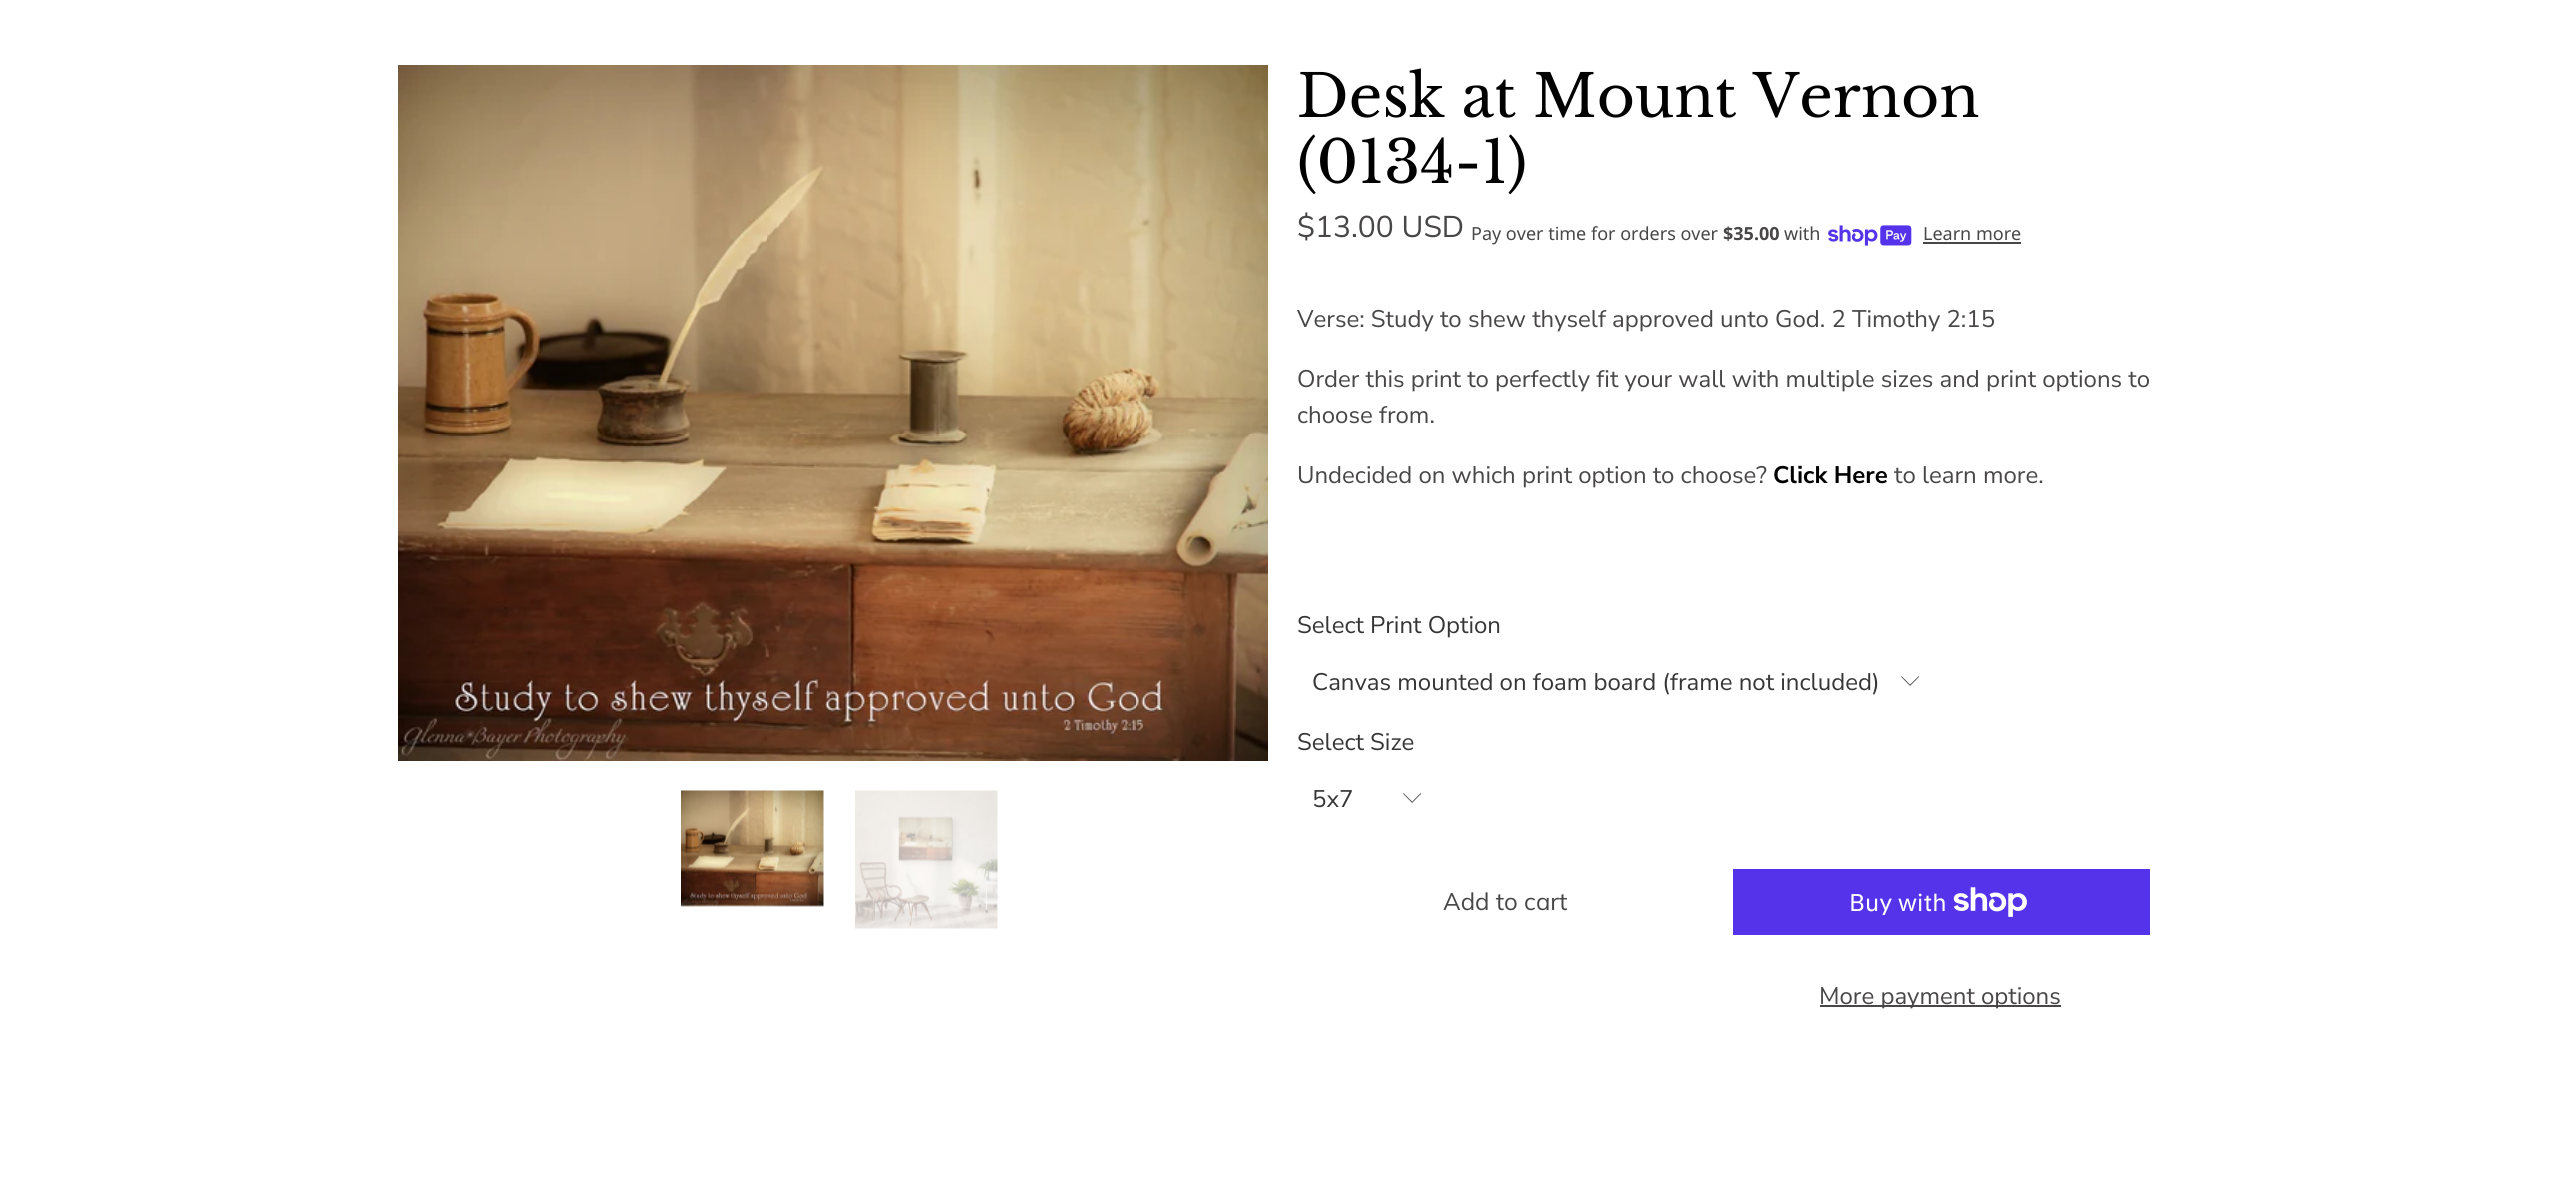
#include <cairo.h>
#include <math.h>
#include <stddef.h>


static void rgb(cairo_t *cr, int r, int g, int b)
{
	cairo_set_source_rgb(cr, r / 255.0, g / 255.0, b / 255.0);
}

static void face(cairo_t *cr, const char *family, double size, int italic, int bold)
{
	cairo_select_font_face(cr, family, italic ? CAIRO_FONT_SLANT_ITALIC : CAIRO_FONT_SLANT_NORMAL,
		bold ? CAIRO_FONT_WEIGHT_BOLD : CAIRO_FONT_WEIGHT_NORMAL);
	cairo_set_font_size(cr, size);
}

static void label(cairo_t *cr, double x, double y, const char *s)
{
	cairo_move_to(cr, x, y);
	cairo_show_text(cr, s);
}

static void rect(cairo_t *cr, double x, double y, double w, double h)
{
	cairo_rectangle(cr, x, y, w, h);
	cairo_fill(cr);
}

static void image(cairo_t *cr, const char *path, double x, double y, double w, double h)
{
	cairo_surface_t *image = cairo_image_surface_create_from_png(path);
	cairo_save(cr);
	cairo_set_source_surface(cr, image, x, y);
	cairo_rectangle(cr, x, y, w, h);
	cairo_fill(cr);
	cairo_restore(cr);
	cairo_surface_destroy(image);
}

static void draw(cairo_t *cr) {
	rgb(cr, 255, 255, 255);
	cairo_paint(cr);
	image(cr, "image0.png", 398, 65, 870, 696);
	image(cr, "image1.png", 681, 790, 143, 117);
	image(cr, "image2.png", 855, 790, 143, 139);
	face(cr, "Libre Baskerville", 58.5, 0, 0);
	rgb(cr, 0, 0, 0);
	label(cr, 1297, 117, "Desk at Mount Vernon");
	label(cr, 1297, 183, "(0134-1)");
	face(cr, "Nunito Sans", 30, 0, 0);
	rgb(cr, 72, 70, 70);
	label(cr, 1297, 237, "$13.00 USD");
	face(cr, "Noto Sans", 18, 0, 0);
	label(cr, 1471, 240, "Pay over time for orders over");
	face(cr, "Noto Sans", 18, 0, 1);
	label(cr, 1723, 240, "$35.00");
	face(cr, "Noto Sans", 18, 0, 0);
	label(cr, 1784, 240, "with");
	image(cr, "image3.png", 1828, 225, 84, 21);
	label(cr, 1923, 240, "Learn more");
	rect(cr, 1923, 242, 98, 2);
	face(cr, "Nunito Sans", 24, 0, 0);
	label(cr, 1297, 327, "Verse: Study to shew thyself approved unto God. 2 Timothy 2:15");
	label(cr, 1297, 387, "Order this print to perfectly fit your wall with multiple sizes and print options to");
	label(cr, 1297, 423, "choose from.");
	label(cr, 1297, 483, "Undecided on which print option to choose?");
	face(cr, "Nunito Sans", 24, 0, 1);
	rgb(cr, 0, 0, 0);
	label(cr, 1773, 483, "Click Here");
	face(cr, "Nunito Sans", 24, 0, 0);
	rgb(cr, 72, 70, 70);
	label(cr, 1894, 483, "to learn more.");
	rgb(cr, 54, 54, 54);
	label(cr, 1297, 633, "Select Print Option");
	label(cr, 1312, 690, "Canvas mounted on foam board (frame not included)");
	image(cr, "image4.png", 1901, 676, 19, 10);
	label(cr, 1297, 750, "Select Size");
	label(cr, 1312, 807, "5x7");
	image(cr, "image4.png", 1403, 793, 19, 10);
	face(cr, "Muli", 24, 0, 0);
	rgb(cr, 72, 70, 70);
	label(cr, 1443, 910, "Add to cart");
	rgb(cr, 84, 51, 235);
	rect(cr, 1733, 869, 417, 66);
	face(cr, "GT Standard", 24, 0, 0);
	rgb(cr, 255, 255, 255);
	label(cr, 1849, 911, "Buy with");
	image(cr, "image5.png", 1953, 887, 74, 30);
	rgb(cr, 72, 70, 70);
	rect(cr, 1820, 1005, 241, 2);
	face(cr, "Nunito Sans", 24, 0, 0);
	label(cr, 1819, 1004, "More payment options");
}

int main(void) {
	cairo_surface_t *surface = cairo_image_surface_create(CAIRO_FORMAT_RGB24, 2563, 1196);
	cairo_t *cr = cairo_create(surface);
	cairo_font_options_t *options = cairo_font_options_create();
	cairo_font_options_set_hint_metrics(options, CAIRO_HINT_METRICS_OFF);
	cairo_font_options_set_hint_style(options, CAIRO_HINT_STYLE_NONE);
	cairo_set_font_options(cr, options);
	cairo_set_miter_limit(cr, 4);
	draw(cr);
	cairo_surface_write_to_png(surface, "render.png");
	cairo_font_options_destroy(options);
	cairo_destroy(cr);
	cairo_surface_destroy(surface);
	return 0;
}
